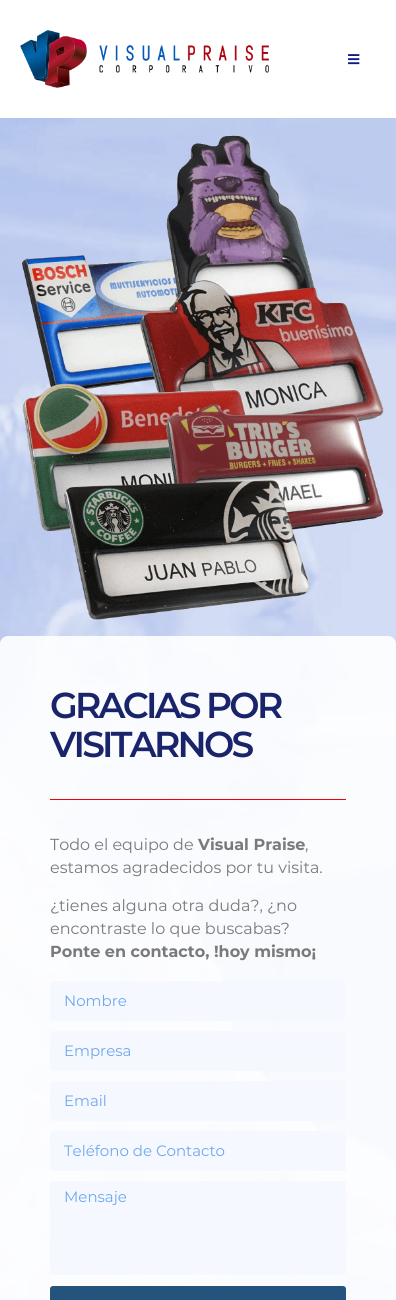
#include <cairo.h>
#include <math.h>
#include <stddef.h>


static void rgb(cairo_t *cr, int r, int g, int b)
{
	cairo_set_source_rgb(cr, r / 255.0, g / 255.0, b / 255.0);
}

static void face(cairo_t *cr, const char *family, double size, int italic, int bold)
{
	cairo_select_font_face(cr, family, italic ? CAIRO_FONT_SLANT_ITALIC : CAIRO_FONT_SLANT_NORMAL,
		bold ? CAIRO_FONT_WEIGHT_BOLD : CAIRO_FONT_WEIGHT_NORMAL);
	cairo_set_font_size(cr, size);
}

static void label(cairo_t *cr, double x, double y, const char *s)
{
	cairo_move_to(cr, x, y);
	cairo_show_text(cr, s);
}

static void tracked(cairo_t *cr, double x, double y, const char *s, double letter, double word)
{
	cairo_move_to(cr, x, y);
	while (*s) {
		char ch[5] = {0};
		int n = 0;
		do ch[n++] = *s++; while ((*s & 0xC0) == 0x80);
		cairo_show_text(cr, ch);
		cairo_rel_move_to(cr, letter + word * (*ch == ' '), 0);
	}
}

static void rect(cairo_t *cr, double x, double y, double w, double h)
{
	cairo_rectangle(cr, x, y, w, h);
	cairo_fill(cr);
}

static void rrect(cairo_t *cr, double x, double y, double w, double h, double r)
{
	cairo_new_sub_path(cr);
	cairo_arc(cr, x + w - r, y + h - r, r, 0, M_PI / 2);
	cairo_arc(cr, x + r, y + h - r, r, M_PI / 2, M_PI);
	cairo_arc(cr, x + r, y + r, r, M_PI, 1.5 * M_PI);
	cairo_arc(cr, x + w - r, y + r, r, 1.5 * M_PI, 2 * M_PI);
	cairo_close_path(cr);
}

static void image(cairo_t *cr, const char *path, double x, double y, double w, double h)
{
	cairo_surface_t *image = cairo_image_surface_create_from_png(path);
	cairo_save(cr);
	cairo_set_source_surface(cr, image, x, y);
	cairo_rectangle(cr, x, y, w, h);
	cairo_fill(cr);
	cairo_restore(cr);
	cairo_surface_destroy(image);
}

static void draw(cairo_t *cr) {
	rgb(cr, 255, 255, 255);
	cairo_paint(cr);
	image(cr, "image0.png", 20, 30, 249, 58);
	image(cr, "image1.png", 348, 54, 12, 11);
	image(cr, "image2.png", 0, 118, 396, 1182);
	image(cr, "image3.png", 22, 135, 362, 485);
	cairo_set_source_rgba(cr, 1, 1, 1, 0.25);
	cairo_new_path(cr);
	cairo_move_to(cr, -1, 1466);
	cairo_line_to(cr, 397, 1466);
	cairo_line_to(cr, 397, 1224);
	cairo_line_to(cr, -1, 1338);
	cairo_close_path(cr);
	cairo_fill(cr);
	cairo_set_source_rgba(cr, 1, 1, 1, 0.9);
	rrect(cr, 0, 636, 396, 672, 8);
	cairo_fill(cr);
	face(cr, "Montserrat SemiBold", 36, 0, 0);
	rgb(cr, 25, 36, 106);
	tracked(cr, 50, 718, "GRACIAS POR", -2.75, 0);
	tracked(cr, 50, 757, "VISITARNOS", -2.75, 0);
	rgb(cr, 248, 0, 0);
	rect(cr, 50, 799, 296, 1);
	face(cr, "Montserrat", 16, 0, 0);
	rgb(cr, 122, 122, 122);
	label(cr, 50, 850, "Todo el equipo de");
	face(cr, "Montserrat", 16, 0, 1);
	label(cr, 198, 850, "Visual Praise");
	face(cr, "Montserrat", 16, 0, 0);
	label(cr, 305, 850, ",");
	label(cr, 50, 873, "estamos agradecidos por tu visita.");
	label(cr, 50, 911, "¿tienes alguna otra duda?, ¿no");
	label(cr, 50, 934, "encontraste lo que buscabas?");
	face(cr, "Montserrat", 16, 0, 1);
	label(cr, 50, 957, "Ponte en contacto, !hoy mismo¡");
	rgb(cr, 245, 248, 255);
	rrect(cr, 50, 981, 296, 40, 3);
	cairo_fill(cr);
	face(cr, "Montserrat", 15, 0, 0);
	rgb(cr, 111, 168, 237);
	label(cr, 64, 1006, "Nombre");
	rgb(cr, 245, 248, 255);
	rrect(cr, 50, 1031, 296, 40, 3);
	cairo_fill(cr);
	rgb(cr, 111, 168, 237);
	label(cr, 64, 1056, "Empresa");
	rgb(cr, 245, 248, 255);
	rrect(cr, 50, 1081, 296, 40, 3);
	cairo_fill(cr);
	rgb(cr, 111, 168, 237);
	label(cr, 64, 1106, "Email");
	rgb(cr, 245, 248, 255);
	rrect(cr, 50, 1131, 296, 40, 3);
	cairo_fill(cr);
	rgb(cr, 111, 168, 237);
	label(cr, 64, 1156, "Teléfono de Contacto");
	rgb(cr, 245, 248, 255);
	rrect(cr, 50, 1181, 296, 94, 3);
	cairo_fill(cr);
	rgb(cr, 111, 168, 237);
	label(cr, 64, 1202, "Mensaje");
	rgb(cr, 36, 84, 126);
	rrect(cr, 50, 1286, 296, 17, 3);
	cairo_fill(cr);
}

int main(void) {
	cairo_surface_t *surface = cairo_image_surface_create(CAIRO_FORMAT_RGB24, 396, 1300);
	cairo_t *cr = cairo_create(surface);
	cairo_font_options_t *options = cairo_font_options_create();
	cairo_font_options_set_hint_metrics(options, CAIRO_HINT_METRICS_OFF);
	cairo_font_options_set_hint_style(options, CAIRO_HINT_STYLE_NONE);
	cairo_set_font_options(cr, options);
	cairo_set_miter_limit(cr, 4);
	draw(cr);
	cairo_surface_write_to_png(surface, "render.png");
	cairo_font_options_destroy(options);
	cairo_destroy(cr);
	cairo_surface_destroy(surface);
	return 0;
}
